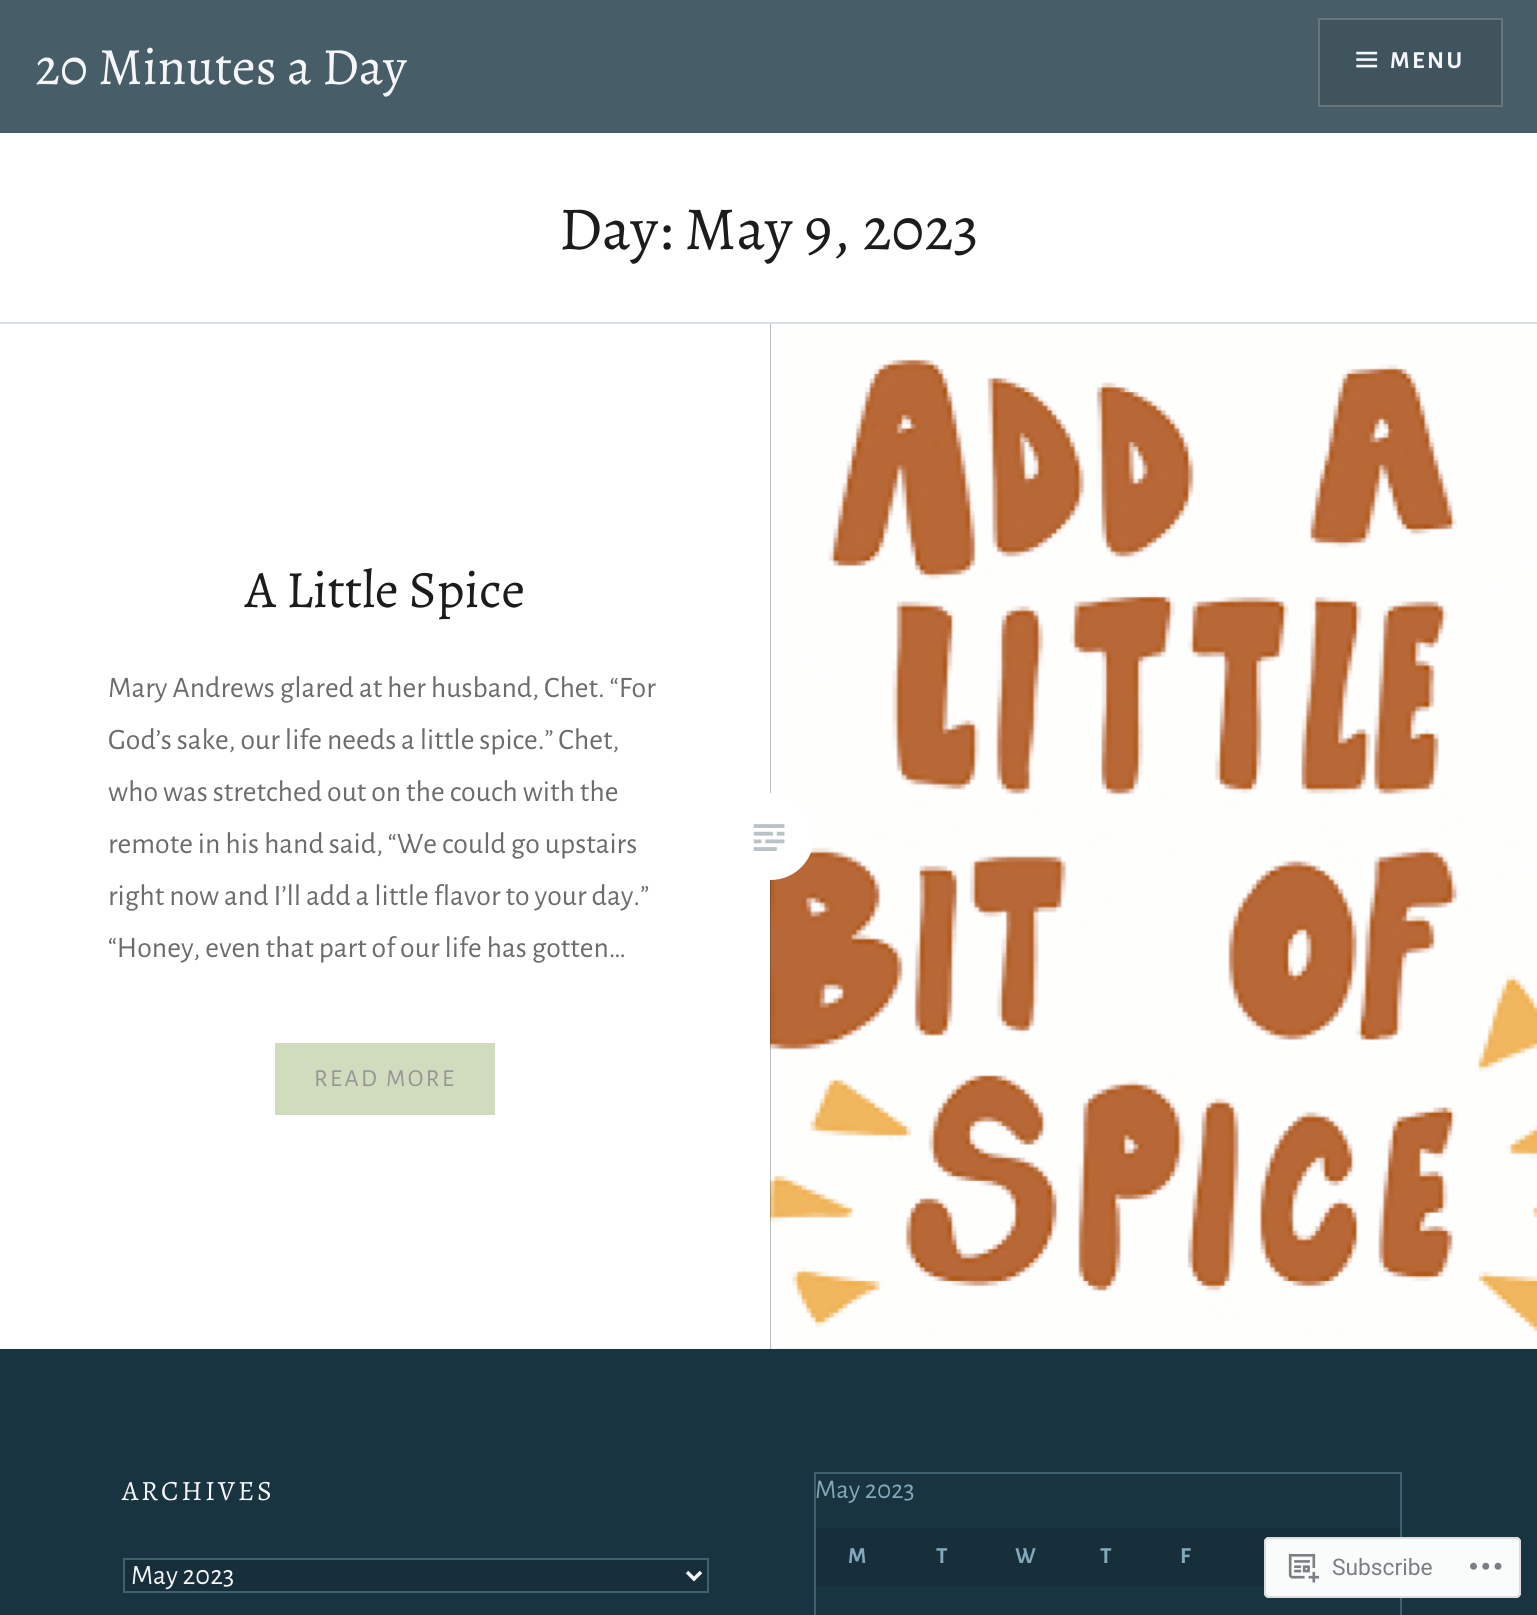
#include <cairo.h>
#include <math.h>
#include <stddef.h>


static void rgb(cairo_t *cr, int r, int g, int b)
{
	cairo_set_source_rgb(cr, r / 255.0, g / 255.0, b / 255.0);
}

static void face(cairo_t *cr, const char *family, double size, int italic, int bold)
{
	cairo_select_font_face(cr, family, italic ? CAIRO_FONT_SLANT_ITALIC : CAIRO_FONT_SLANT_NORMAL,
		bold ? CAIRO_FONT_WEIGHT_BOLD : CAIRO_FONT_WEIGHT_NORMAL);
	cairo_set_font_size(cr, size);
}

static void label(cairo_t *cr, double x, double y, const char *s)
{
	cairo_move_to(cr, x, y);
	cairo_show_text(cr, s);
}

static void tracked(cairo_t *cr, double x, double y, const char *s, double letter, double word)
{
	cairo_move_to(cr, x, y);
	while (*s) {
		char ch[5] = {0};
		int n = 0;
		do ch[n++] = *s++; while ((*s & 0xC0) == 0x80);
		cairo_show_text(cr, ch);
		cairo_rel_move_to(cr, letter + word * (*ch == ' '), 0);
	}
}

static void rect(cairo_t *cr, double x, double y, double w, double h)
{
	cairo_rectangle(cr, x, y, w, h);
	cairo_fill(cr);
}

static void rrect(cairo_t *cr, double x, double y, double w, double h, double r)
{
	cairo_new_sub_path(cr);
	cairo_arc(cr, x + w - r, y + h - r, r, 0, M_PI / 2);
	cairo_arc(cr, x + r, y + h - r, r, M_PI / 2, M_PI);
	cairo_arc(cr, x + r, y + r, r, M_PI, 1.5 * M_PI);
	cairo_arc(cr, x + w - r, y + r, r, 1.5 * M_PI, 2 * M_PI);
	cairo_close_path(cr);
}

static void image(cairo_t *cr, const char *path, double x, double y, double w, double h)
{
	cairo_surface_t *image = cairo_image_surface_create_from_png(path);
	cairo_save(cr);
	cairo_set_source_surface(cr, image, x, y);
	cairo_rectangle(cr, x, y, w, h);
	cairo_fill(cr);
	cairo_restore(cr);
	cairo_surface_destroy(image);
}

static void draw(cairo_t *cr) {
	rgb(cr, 255, 255, 255);
	cairo_paint(cr);
	rgb(cr, 71, 93, 103);
	rect(cr, 0, 0, 1537, 133);
	face(cr, "Alegreya", 52.5, 0, 0);
	rgb(cr, 245, 246, 249);
	label(cr, 35, 84, "20 Minutes a Day");
	rgb(cr, 64, 84, 93);
	cairo_rectangle(cr, 1319, 19, 183, 87);
	cairo_fill_preserve(cr);
	rgb(cr, 102, 118, 125);
	cairo_stroke(cr);
	image(cr, "image0.png", 1356, 51, 22, 17);
	face(cr, "Alegreya Sans", 24.5, 0, 1);
	rgb(cr, 245, 246, 249);
	tracked(cr, 1390, 68, "MENU", 2.5, 0);
	rgb(cr, 217, 223, 229);
	rect(cr, 0, 322, 1537, 2);
	face(cr, "Alegreya", 61.25, 0, 0);
	rgb(cr, 26, 28, 30);
	label(cr, 559, 249, "Day: May 9, 2023");
	face(cr, "Alegreya", 52.5, 0, 0);
	label(cr, 245, 607, "A Little Spice");
	face(cr, "Alegreya Sans", 29.75, 0, 0);
	rgb(cr, 106, 108, 110);
	label(cr, 108, 697, "Mary Andrews glared at her husband, Chet. “For");
	label(cr, 108, 749, "God’s sake, our life needs a little spice.” Chet,");
	label(cr, 108, 801, "who was stretched out on the couch with the");
	label(cr, 108, 853, "remote in his hand said, “We could go upstairs");
	label(cr, 108, 905, "right now and I’ll add a little flavor to your day.”");
	label(cr, 108, 957, "“Honey, even that part of our life has gotten…");
	rgb(cr, 209, 219, 189);
	rect(cr, 275, 1043, 220, 72);
	face(cr, "Alegreya Sans", 24.5, 0, 0);
	rgb(cr, 150, 150, 150);
	tracked(cr, 314, 1086, "READ MORE", 2.5, 0);
	rgb(cr, 18, 38, 47);
	rect(cr, 770, 324, 767, 1025);
	image(cr, "image2.png", 770, 324, 767, 1025);
	rgb(cr, 255, 255, 255);
	rrect(cr, 726, 793, 88, 87, 43.5);
	cairo_fill(cr);
	image(cr, "image1.png", 753, 824, 32, 27);
	rgb(cr, 25, 52, 65);
	rect(cr, 0, 1349, 1537, 266);
	face(cr, "Alegreya", 28, 0, 0);
	rgb(cr, 245, 246, 249);
	tracked(cr, 122, 1500, "ARCHIVES", 2.75, 0);
	rgb(cr, 23, 47, 59);
	cairo_rectangle(cr, 124, 1559, 584, 33);
	cairo_fill_preserve(cr);
	rgb(cr, 62, 96, 111);
	cairo_stroke(cr);
	cairo_new_path(cr);
	cairo_move_to(cr, 687, 1572);
	cairo_line_to(cr, 694, 1579);
	cairo_line_to(cr, 701, 1572);
	rgb(cr, 245, 246, 249);
	cairo_set_line_width(cr, 3.5);
	cairo_stroke(cr);
	face(cr, "Alegreya Sans", 28, 0, 0);
	label(cr, 131, 1584, "May 2023");
	rgb(cr, 62, 96, 111);
	rect(cr, 814, 1472, 588, 2);
	rect(cr, 1400, 1472, 2, 143);
	rect(cr, 814, 1472, 2, 143);
	face(cr, "Alegreya Sans", 27, 0, 0);
	rgb(cr, 130, 168, 185);
	label(cr, 815, 1498, "May 2023");
	rgb(cr, 23, 47, 59);
	rect(cr, 816, 1528, 584, 59);
	face(cr, "Alegreya Sans", 23, 0, 1);
	rgb(cr, 130, 168, 185);
	tracked(cr, 848, 1563, "M", 2, 0);
	tracked(cr, 936, 1563, "T", 2, 0);
	tracked(cr, 1015, 1563, "W", 2, 0);
	tracked(cr, 1100, 1563, "T", 2, 0);
	tracked(cr, 1180, 1563, "F", 2, 0);
	cairo_set_source_rgba(cr, 1, 1, 1, 0.98);
	rrect(cr, 1264, 1537, 257, 61, 5);
	cairo_fill(cr);
	rrect(cr, 1265, 1538, 255, 59, 4);
	cairo_set_source_rgba(cr, 0.863, 0.863, 0.871, 0.98);
	cairo_set_line_width(cr, 2);
	cairo_stroke(cr);
	image(cr, "image3.png", 1288, 1554, 32, 29);
	face(cr, "Roboto", 22.75, 0, 0);
	rgb(cr, 123, 127, 132);
	label(cr, 1332, 1575, "Subscribe");
	image(cr, "image4.png", 1470, 1562, 32, 8);
}

int main(void) {
	cairo_surface_t *surface = cairo_image_surface_create(CAIRO_FORMAT_RGB24, 1537, 1615);
	cairo_t *cr = cairo_create(surface);
	cairo_font_options_t *options = cairo_font_options_create();
	cairo_font_options_set_hint_metrics(options, CAIRO_HINT_METRICS_OFF);
	cairo_font_options_set_hint_style(options, CAIRO_HINT_STYLE_NONE);
	cairo_set_font_options(cr, options);
	cairo_set_miter_limit(cr, 4);
	draw(cr);
	cairo_surface_write_to_png(surface, "render.png");
	cairo_font_options_destroy(options);
	cairo_destroy(cr);
	cairo_surface_destroy(surface);
	return 0;
}
